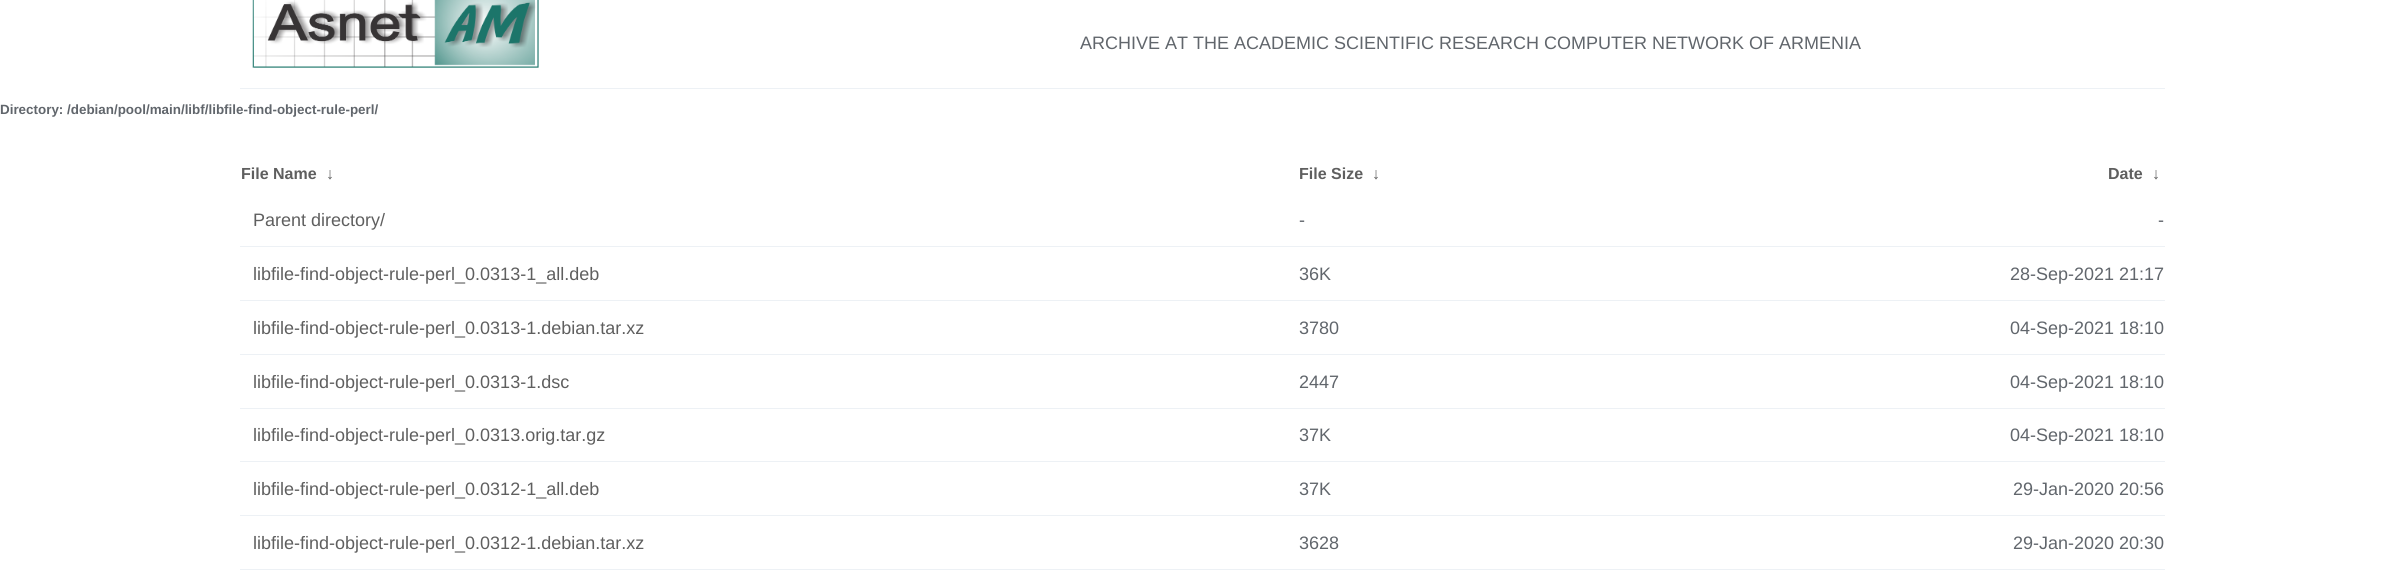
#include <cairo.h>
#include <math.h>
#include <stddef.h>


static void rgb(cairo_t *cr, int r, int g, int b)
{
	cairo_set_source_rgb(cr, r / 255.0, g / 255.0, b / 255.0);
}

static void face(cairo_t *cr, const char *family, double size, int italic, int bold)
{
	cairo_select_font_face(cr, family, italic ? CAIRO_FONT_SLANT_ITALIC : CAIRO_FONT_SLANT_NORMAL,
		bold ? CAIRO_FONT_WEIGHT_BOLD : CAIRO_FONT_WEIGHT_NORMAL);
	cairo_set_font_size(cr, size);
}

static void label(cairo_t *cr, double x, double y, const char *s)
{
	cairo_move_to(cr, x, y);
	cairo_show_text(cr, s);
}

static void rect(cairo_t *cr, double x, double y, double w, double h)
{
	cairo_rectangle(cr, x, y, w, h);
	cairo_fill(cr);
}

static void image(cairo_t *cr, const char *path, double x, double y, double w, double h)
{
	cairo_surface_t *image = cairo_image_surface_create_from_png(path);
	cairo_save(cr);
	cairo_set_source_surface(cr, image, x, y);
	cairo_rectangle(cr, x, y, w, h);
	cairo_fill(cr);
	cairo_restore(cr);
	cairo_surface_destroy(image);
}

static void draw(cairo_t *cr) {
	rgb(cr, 255, 255, 255);
	cairo_paint(cr);
	image(cr, "image0.png", 252, 0, 287, 68);
	rgb(cr, 237, 241, 245);
	rect(cr, 240, 88, 1925, 1);
	face(cr, "Liberation Sans", 18, 0, 0);
	rgb(cr, 97, 102, 108);
	label(cr, 1080, 49, "ARCHIVE AT THE ACADEMIC SCIENTIFIC RESEARCH COMPUTER NETWORK OF ARMENIA");
	face(cr, "Liberation Sans", 13.4, 0, 1);
	label(cr, 0, 114, "Directory: /debian/pool/main/libf/libfile-find-object-rule-perl/");
	face(cr, "Liberation Sans", 16, 0, 1);
	rgb(cr, 95, 95, 95);
	label(cr, 241, 179, "File Name");
	label(cr, 326, 179, "↓");
	label(cr, 1299, 179, "File Size");
	label(cr, 1372, 179, "↓");
	label(cr, 2108, 179, "Date");
	label(cr, 2152, 179, "↓");
	face(cr, "Liberation Sans", 18, 0, 0);
	label(cr, 253, 226, "Parent directory/");
	rgb(cr, 97, 102, 108);
	label(cr, 1299, 226, "-");
	rgb(cr, 237, 241, 245);
	rect(cr, 240, 246, 1925, 1);
	rgb(cr, 97, 102, 108);
	label(cr, 2158, 226, "-");
	rgb(cr, 95, 95, 95);
	label(cr, 253, 280, "libfile-find-object-rule-perl_0.0313-1_all.deb");
	rgb(cr, 97, 102, 108);
	label(cr, 1299, 280, "36K");
	rgb(cr, 237, 241, 245);
	rect(cr, 240, 300, 1925, 1);
	rgb(cr, 97, 102, 108);
	label(cr, 2010, 280, "28-Sep-2021 21:17");
	rgb(cr, 95, 95, 95);
	label(cr, 253, 334, "libfile-find-object-rule-perl_0.0313-1.debian.tar.xz");
	rgb(cr, 97, 102, 108);
	label(cr, 1299, 334, "3780");
	rgb(cr, 237, 241, 245);
	rect(cr, 240, 354, 1925, 1);
	rgb(cr, 97, 102, 108);
	label(cr, 2010, 334, "04-Sep-2021 18:10");
	rgb(cr, 95, 95, 95);
	label(cr, 253, 388, "libfile-find-object-rule-perl_0.0313-1.dsc");
	rgb(cr, 97, 102, 108);
	label(cr, 1299, 388, "2447");
	rgb(cr, 237, 241, 245);
	rect(cr, 240, 408, 1925, 1);
	rgb(cr, 97, 102, 108);
	label(cr, 2010, 388, "04-Sep-2021 18:10");
	rgb(cr, 95, 95, 95);
	label(cr, 253, 441, "libfile-find-object-rule-perl_0.0313.orig.tar.gz");
	rgb(cr, 97, 102, 108);
	label(cr, 1299, 441, "37K");
	rgb(cr, 237, 241, 245);
	rect(cr, 240, 461, 1925, 1);
	rgb(cr, 97, 102, 108);
	label(cr, 2010, 441, "04-Sep-2021 18:10");
	rgb(cr, 95, 95, 95);
	label(cr, 253, 495, "libfile-find-object-rule-perl_0.0312-1_all.deb");
	rgb(cr, 97, 102, 108);
	label(cr, 1299, 495, "37K");
	rgb(cr, 237, 241, 245);
	rect(cr, 240, 515, 1925, 1);
	rgb(cr, 97, 102, 108);
	label(cr, 2013, 495, "29-Jan-2020 20:56");
	rgb(cr, 95, 95, 95);
	label(cr, 253, 549, "libfile-find-object-rule-perl_0.0312-1.debian.tar.xz");
	rgb(cr, 97, 102, 108);
	label(cr, 1299, 549, "3628");
	rgb(cr, 237, 241, 245);
	rect(cr, 240, 569, 1925, 1);
	rgb(cr, 97, 102, 108);
	label(cr, 2013, 549, "29-Jan-2020 20:30");
}

int main(void) {
	cairo_surface_t *surface = cairo_image_surface_create(CAIRO_FORMAT_RGB24, 2404, 576);
	cairo_t *cr = cairo_create(surface);
	cairo_font_options_t *options = cairo_font_options_create();
	cairo_font_options_set_hint_metrics(options, CAIRO_HINT_METRICS_OFF);
	cairo_font_options_set_hint_style(options, CAIRO_HINT_STYLE_NONE);
	cairo_set_font_options(cr, options);
	cairo_set_miter_limit(cr, 4);
	draw(cr);
	cairo_surface_write_to_png(surface, "render.png");
	cairo_font_options_destroy(options);
	cairo_destroy(cr);
	cairo_surface_destroy(surface);
	return 0;
}
